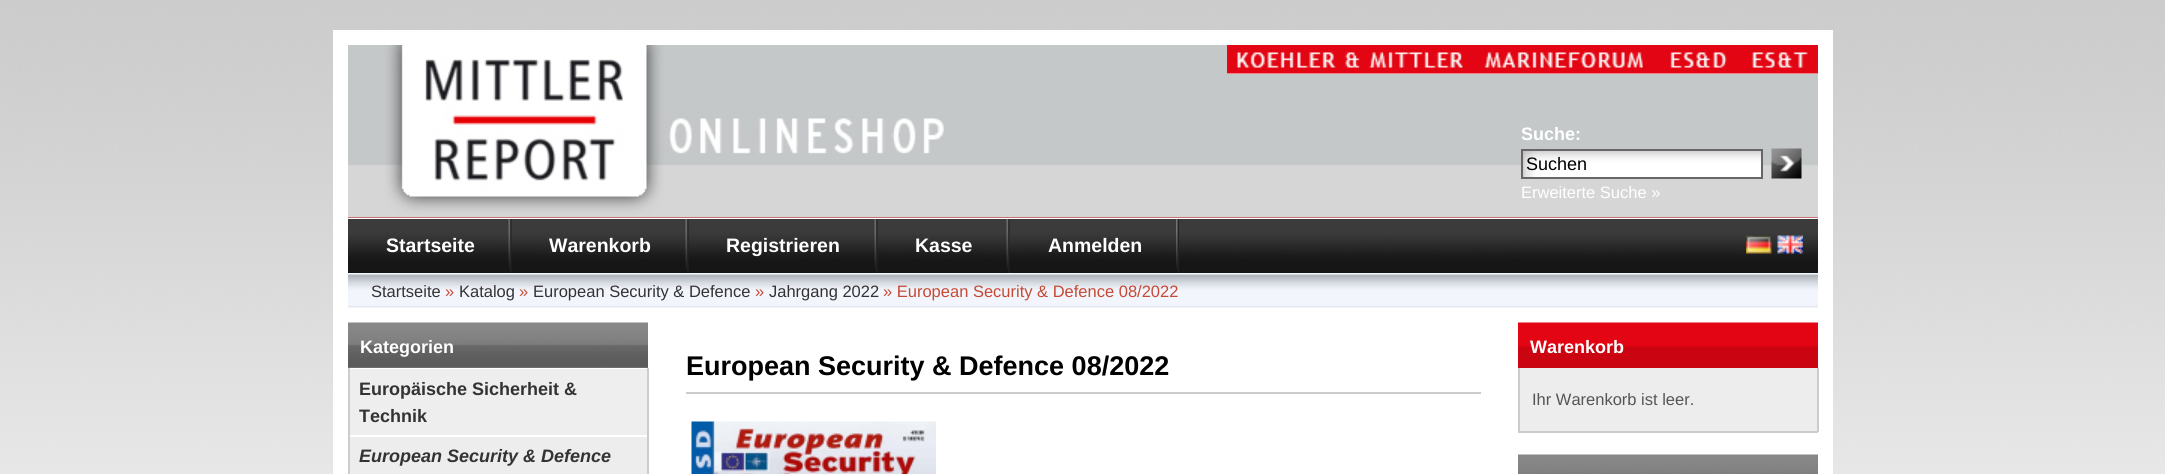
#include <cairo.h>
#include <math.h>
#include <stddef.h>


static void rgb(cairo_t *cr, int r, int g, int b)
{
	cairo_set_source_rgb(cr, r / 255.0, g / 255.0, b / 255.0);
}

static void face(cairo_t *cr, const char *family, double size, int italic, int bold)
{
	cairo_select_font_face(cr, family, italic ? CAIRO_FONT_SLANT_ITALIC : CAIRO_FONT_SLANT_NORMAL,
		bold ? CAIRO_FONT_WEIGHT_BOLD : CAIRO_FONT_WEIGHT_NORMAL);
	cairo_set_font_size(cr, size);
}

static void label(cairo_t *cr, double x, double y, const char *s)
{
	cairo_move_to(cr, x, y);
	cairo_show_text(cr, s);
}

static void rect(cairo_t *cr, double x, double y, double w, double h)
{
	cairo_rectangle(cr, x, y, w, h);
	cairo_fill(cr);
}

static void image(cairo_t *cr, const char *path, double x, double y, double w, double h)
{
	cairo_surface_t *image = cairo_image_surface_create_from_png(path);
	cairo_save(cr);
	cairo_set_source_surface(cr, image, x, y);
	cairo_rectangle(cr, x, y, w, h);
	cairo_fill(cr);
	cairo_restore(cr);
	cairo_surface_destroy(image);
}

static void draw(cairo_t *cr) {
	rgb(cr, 255, 255, 255);
	cairo_paint(cr);
	image(cr, "image0.png", 0, 0, 2165, 474);
	rgb(cr, 255, 255, 255);
	rect(cr, 348, 307, 1470, 167);
	rect(cr, 1818, 30, 15, 444);
	rect(cr, 333, 30, 15, 444);
	rgb(cr, 192, 13, 13);
	rect(cr, 348, 217, 1470, 1);
	image(cr, "image1.png", 348, 45, 1470, 173);
	rgb(cr, 255, 255, 255);
	rect(cr, 348, 30, 1470, 15);
	rect(cr, 348, 218, 1470, 1);
	rect(cr, 1227, 73, 591, 1);
	image(cr, "image2.png", 1227, 45, 246, 29);
	image(cr, "image3.png", 1473, 45, 183, 29);
	image(cr, "image4.png", 1656, 45, 84, 29);
	image(cr, "image5.png", 1740, 45, 78, 29);
	face(cr, "Liberation Sans", 18, 0, 1);
	label(cr, 1521, 140, "Suche:");
	image(cr, "image6.png", 1523, 151, 238, 26);
	cairo_rectangle(cr, 1522, 150, 240, 28);
	rgb(cr, 102, 102, 102);
	cairo_stroke(cr);
	face(cr, "Liberation Sans", 18, 0, 0);
	rgb(cr, 0, 0, 0);
	label(cr, 1526, 170, "Suchen");
	image(cr, "image7.png", 1771, 148, 31, 31);
	face(cr, "Liberation Sans", 16.5, 0, 0);
	rgb(cr, 255, 255, 255);
	label(cr, 1521, 198, "Erweiterte Suche »");
	image(cr, "image8.png", 348, 219, 1470, 54);
	image(cr, "image9.png", 508, 219, 4, 54);
	face(cr, "Liberation Sans", 19.5, 0, 1);
	label(cr, 386, 252, "Startseite");
	image(cr, "image10.png", 685, 219, 4, 54);
	label(cr, 549, 252, "Warenkorb");
	image(cr, "image11.png", 874, 219, 4, 54);
	label(cr, 726, 252, "Registrieren");
	image(cr, "image12.png", 1006, 219, 4, 54);
	label(cr, 915, 252, "Kasse");
	image(cr, "image13.png", 1176, 219, 3, 54);
	label(cr, 1048, 252, "Anmelden");
	image(cr, "image14.png", 1746, 235, 26, 19);
	image(cr, "image15.png", 1777, 235, 26, 19);
	image(cr, "image16.png", 348, 273, 1470, 35);
	face(cr, "Liberation Sans", 16.5, 0, 0);
	rgb(cr, 51, 51, 51);
	label(cr, 371, 297, "Startseite");
	rgb(cr, 198, 73, 52);
	label(cr, 445, 297, "»");
	rgb(cr, 51, 51, 51);
	label(cr, 459, 297, "Katalog");
	rgb(cr, 198, 73, 52);
	label(cr, 519, 297, "»");
	rgb(cr, 51, 51, 51);
	label(cr, 533, 297, "European Security & Defence");
	rgb(cr, 198, 73, 52);
	label(cr, 755, 297, "»");
	rgb(cr, 51, 51, 51);
	label(cr, 769, 297, "Jahrgang 2022");
	rgb(cr, 198, 73, 52);
	label(cr, 883, 297, "» European Security & Defence 08/2022");
	rgb(cr, 134, 134, 134);
	rect(cr, 348, 367, 300, 1);
	image(cr, "image17.png", 348, 322, 300, 46);
	face(cr, "Liberation Sans", 18, 0, 1);
	rgb(cr, 255, 255, 255);
	label(cr, 360, 353, "Kategorien");
	rgb(cr, 237, 237, 237);
	rect(cr, 350, 437, 297, 37);
	rgb(cr, 204, 204, 204);
	rect(cr, 647, 368, 2, 106);
	rect(cr, 348, 368, 2, 106);
	rgb(cr, 238, 238, 238);
	rect(cr, 350, 369, 297, 66);
	rgb(cr, 51, 51, 51);
	label(cr, 359, 395, "Europäische Sicherheit &");
	label(cr, 359, 422, "Technik");
	face(cr, "Liberation Sans", 18, 1, 1);
	label(cr, 359, 462, "European Security & Defence");
	rgb(cr, 204, 204, 204);
	rect(cr, 686, 392, 795, 2);
	face(cr, "Liberation Sans", 27, 0, 1);
	rgb(cr, 0, 0, 0);
	label(cr, 686, 375, "European Security & Defence 08/2022");
	image(cr, "image18.png", 691, 421, 245, 53);
	rgb(cr, 192, 13, 13);
	rect(cr, 1518, 367, 300, 1);
	image(cr, "image19.png", 1518, 322, 300, 46);
	face(cr, "Liberation Sans", 18, 0, 1);
	rgb(cr, 255, 255, 255);
	label(cr, 1530, 353, "Warenkorb");
	rgb(cr, 237, 237, 237);
	rect(cr, 1520, 368, 297, 63);
	rgb(cr, 204, 204, 204);
	rect(cr, 1817, 368, 2, 64);
	rect(cr, 1518, 431, 300, 2);
	rect(cr, 1518, 368, 2, 64);
	face(cr, "Liberation Sans", 16.5, 0, 0);
	rgb(cr, 85, 85, 85);
	label(cr, 1532, 405, "Ihr Warenkorb ist leer.");
	image(cr, "image20.png", 1518, 454, 300, 20);
}

int main(void) {
	cairo_surface_t *surface = cairo_image_surface_create(CAIRO_FORMAT_RGB24, 2165, 474);
	cairo_t *cr = cairo_create(surface);
	cairo_font_options_t *options = cairo_font_options_create();
	cairo_font_options_set_hint_metrics(options, CAIRO_HINT_METRICS_OFF);
	cairo_font_options_set_hint_style(options, CAIRO_HINT_STYLE_NONE);
	cairo_set_font_options(cr, options);
	cairo_set_miter_limit(cr, 4);
	draw(cr);
	cairo_surface_write_to_png(surface, "render.png");
	cairo_font_options_destroy(options);
	cairo_destroy(cr);
	cairo_surface_destroy(surface);
	return 0;
}
